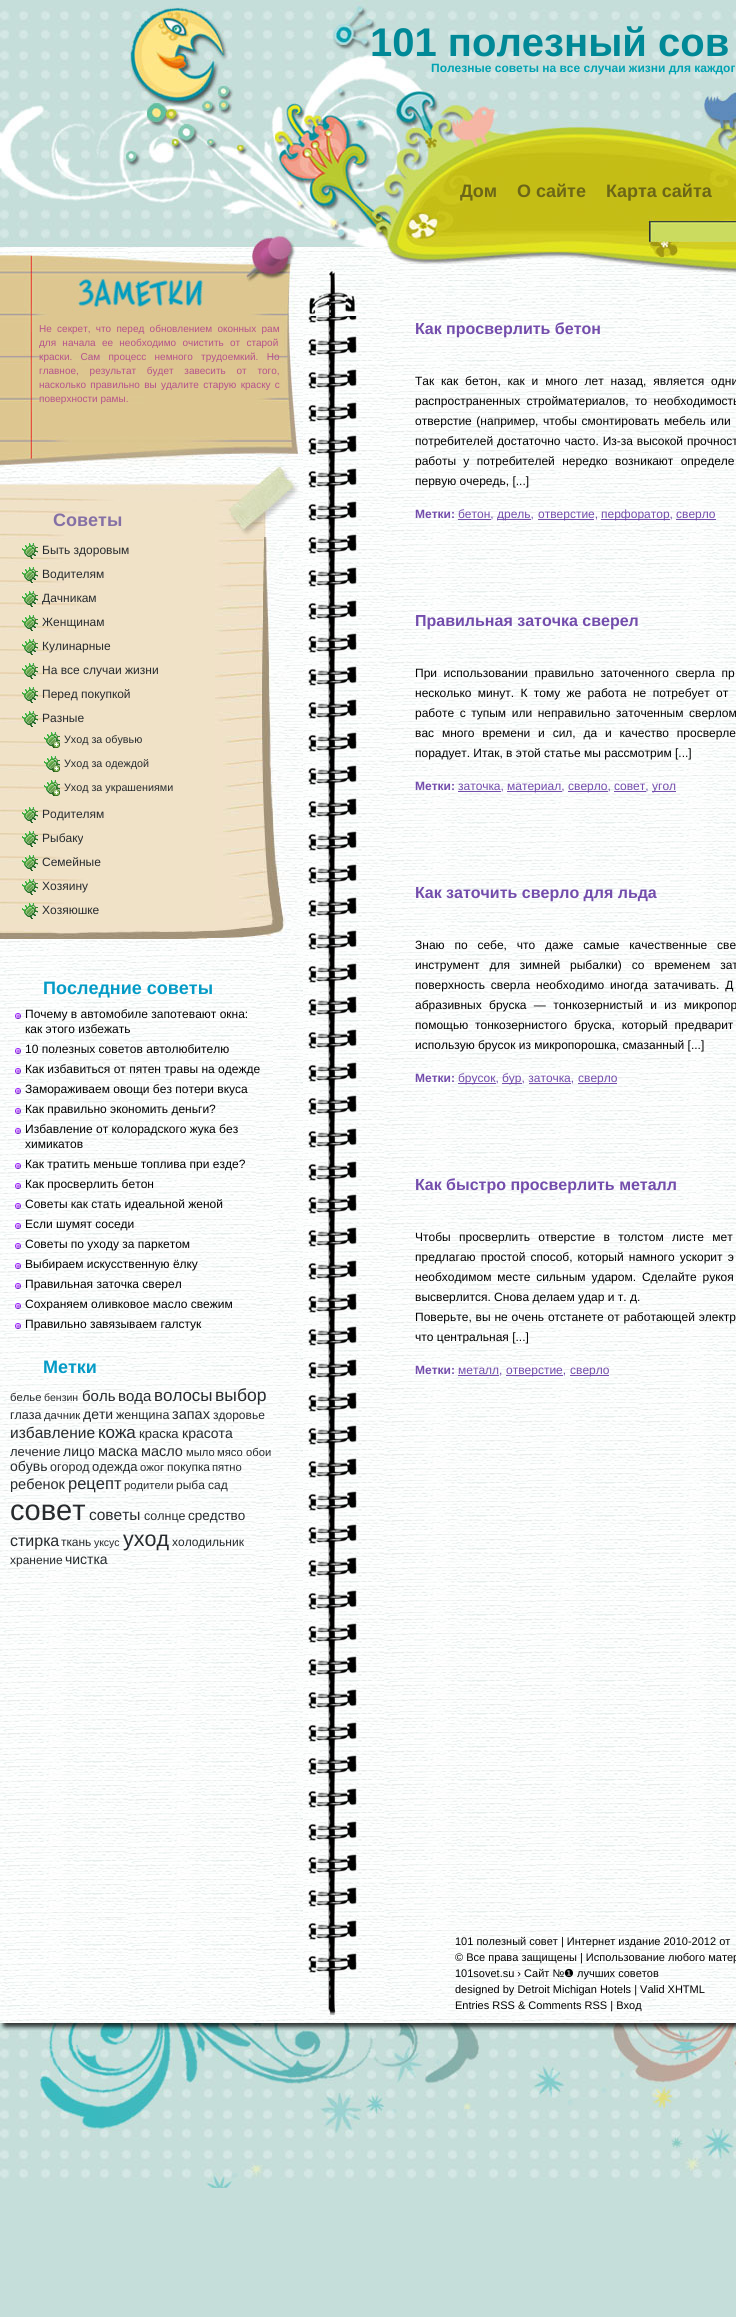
#include <cairo.h>
#include <math.h>
#include <stddef.h>


static void rgb(cairo_t *cr, int r, int g, int b)
{
	cairo_set_source_rgb(cr, r / 255.0, g / 255.0, b / 255.0);
}

static void face(cairo_t *cr, const char *family, double size, int italic, int bold)
{
	cairo_select_font_face(cr, family, italic ? CAIRO_FONT_SLANT_ITALIC : CAIRO_FONT_SLANT_NORMAL,
		bold ? CAIRO_FONT_WEIGHT_BOLD : CAIRO_FONT_WEIGHT_NORMAL);
	cairo_set_font_size(cr, size);
}

static void label(cairo_t *cr, double x, double y, const char *s)
{
	cairo_move_to(cr, x, y);
	cairo_show_text(cr, s);
}

static void tracked(cairo_t *cr, double x, double y, const char *s, double letter, double word)
{
	cairo_move_to(cr, x, y);
	while (*s) {
		char ch[5] = {0};
		int n = 0;
		do ch[n++] = *s++; while ((*s & 0xC0) == 0x80);
		cairo_show_text(cr, ch);
		cairo_rel_move_to(cr, letter + word * (*ch == ' '), 0);
	}
}

static void rect(cairo_t *cr, double x, double y, double w, double h)
{
	cairo_rectangle(cr, x, y, w, h);
	cairo_fill(cr);
}

static void image(cairo_t *cr, const char *path, double x, double y, double w, double h)
{
	cairo_surface_t *image = cairo_image_surface_create_from_png(path);
	cairo_save(cr);
	cairo_set_source_surface(cr, image, x, y);
	cairo_rectangle(cr, x, y, w, h);
	cairo_fill(cr);
	cairo_restore(cr);
	cairo_surface_destroy(image);
}

static void draw(cairo_t *cr) {
	rgb(cr, 197, 222, 218);
	cairo_paint(cr);
	image(cr, "image0.png", 0, 316, 736, 1665);
	image(cr, "image1.png", 0, 1981, 736, 207);
	image(cr, "image2.png", 0, 0, 736, 316);
	face(cr, "Liberation Sans", 40, 0, 1);
	rgb(cr, 0, 137, 151);
	label(cr, 370, 56, "101 полезный сов");
	face(cr, "Liberation Sans", 12, 0, 1);
	rgb(cr, 0, 162, 178);
	label(cr, 431, 72, "Полезные советы на все случаи жизни для каждог");
	face(cr, "Liberation Sans", 18, 0, 1);
	rgb(cr, 108, 102, 23);
	label(cr, 460, 197, "Дом");
	label(cr, 517, 197, "О сайте");
	label(cr, 606, 197, "Карта сайта");
	image(cr, "image3.png", 0, 502, 303, 1416);
	image(cr, "image4.png", 0, 316, 303, 151);
	face(cr, "Liberation Sans", 10, 0, 0);
	rgb(cr, 181, 82, 139);
	tracked(cr, 39, 332, "Не секрет, что перед обновлением оконных рам", 0, 2.5);
	tracked(cr, 39, 346, "для начала ее необходимо очистить от старой", 0, 3.5);
	tracked(cr, 39, 360, "краски. Сам процесс немного трудоемкий. Но", 0, 5.5);
	tracked(cr, 39, 374, "главное, результат будет завесить от того,", 0, 8);
	tracked(cr, 39, 388, "насколько правильно вы удалите старую краску с", 0, 1.5);
	label(cr, 39, 402, "поверхности рамы.");
	image(cr, "image5.png", 215, 537, 88, 402);
	image(cr, "image6.png", 215, 467, 88, 70);
	image(cr, "image7.png", 0, 467, 215, 35);
	face(cr, "Liberation Sans", 18, 0, 1);
	rgb(cr, 133, 112, 165);
	label(cr, 53, 526, "Советы");
	image(cr, "image8.png", 22, 543, 16, 16);
	face(cr, "Liberation Sans", 12, 0, 0);
	rgb(cr, 39, 43, 46);
	label(cr, 42, 554, "Быть здоровым");
	image(cr, "image9.png", 22, 567, 16, 16);
	label(cr, 42, 578, "Водителям");
	image(cr, "image10.png", 22, 591, 16, 16);
	label(cr, 42, 602, "Дачникам");
	image(cr, "image11.png", 22, 615, 16, 16);
	label(cr, 42, 626, "Женщинам");
	image(cr, "image12.png", 22, 639, 16, 16);
	label(cr, 42, 650, "Кулинарные");
	image(cr, "image13.png", 22, 663, 16, 16);
	label(cr, 42, 674, "На все случаи жизни");
	image(cr, "image14.png", 22, 687, 16, 16);
	label(cr, 42, 698, "Перед покупкой");
	image(cr, "image15.png", 22, 711, 16, 16);
	label(cr, 42, 722, "Разные");
	image(cr, "image16.png", 44, 732, 16, 16);
	face(cr, "Liberation Sans", 10.75, 0, 0);
	label(cr, 64, 743, "Уход за обувью");
	image(cr, "image17.png", 44, 756, 16, 16);
	label(cr, 64, 767, "Уход за одеждой");
	image(cr, "image18.png", 44, 780, 16, 16);
	label(cr, 64, 791, "Уход за украшениями");
	image(cr, "image19.png", 22, 807, 16, 16);
	face(cr, "Liberation Sans", 12, 0, 0);
	label(cr, 42, 818, "Родителям");
	image(cr, "image20.png", 22, 831, 16, 16);
	label(cr, 42, 842, "Рыбаку");
	image(cr, "image21.png", 22, 855, 16, 16);
	label(cr, 42, 866, "Семейные");
	image(cr, "image22.png", 22, 879, 16, 16);
	label(cr, 42, 890, "Хозяину");
	image(cr, "image23.png", 22, 903, 16, 16);
	label(cr, 42, 914, "Хозяюшке");
	image(cr, "image24.png", 0, 924, 215, 15);
	image(cr, "image25.png", 0, 939, 273, 979);
	face(cr, "Liberation Sans", 18, 0, 1);
	rgb(cr, 4, 155, 198);
	label(cr, 43, 994, "Последние советы");
	image(cr, "image26.png", 15, 1013, 6, 6);
	face(cr, "Liberation Sans", 12, 0, 0);
	rgb(cr, 0, 0, 0);
	label(cr, 25, 1018, "Почему в автомобиле запотевают окна:");
	label(cr, 25, 1033, "как этого избежать");
	image(cr, "image26.png", 15, 1048, 6, 6);
	label(cr, 25, 1053, "10 полезных советов автолюбителю");
	image(cr, "image26.png", 15, 1068, 6, 6);
	label(cr, 25, 1073, "Как избавиться от пятен травы на одежде");
	image(cr, "image26.png", 15, 1088, 6, 6);
	label(cr, 25, 1093, "Замораживаем овощи без потери вкуса");
	image(cr, "image26.png", 15, 1108, 6, 6);
	label(cr, 25, 1113, "Как правильно экономить деньги?");
	image(cr, "image26.png", 15, 1128, 6, 6);
	label(cr, 25, 1133, "Избавление от колорадского жука без");
	label(cr, 25, 1148, "химикатов");
	image(cr, "image26.png", 15, 1163, 6, 6);
	label(cr, 25, 1168, "Как тратить меньше топлива при езде?");
	image(cr, "image26.png", 15, 1183, 6, 6);
	label(cr, 25, 1188, "Как просверлить бетон");
	image(cr, "image26.png", 15, 1203, 6, 6);
	label(cr, 25, 1208, "Советы как стать идеальной женой");
	image(cr, "image26.png", 15, 1223, 6, 6);
	label(cr, 25, 1228, "Если шумят соседи");
	image(cr, "image26.png", 15, 1243, 6, 6);
	label(cr, 25, 1248, "Советы по уходу за паркетом");
	image(cr, "image26.png", 15, 1263, 6, 6);
	label(cr, 25, 1268, "Выбираем искусственную ёлку");
	image(cr, "image26.png", 15, 1283, 6, 6);
	label(cr, 25, 1288, "Правильная заточка сверел");
	image(cr, "image26.png", 15, 1303, 6, 6);
	label(cr, 25, 1308, "Сохраняем оливковое масло свежим");
	image(cr, "image26.png", 15, 1323, 6, 6);
	label(cr, 25, 1328, "Правильно завязываем галстук");
	face(cr, "Liberation Sans", 18, 0, 1);
	rgb(cr, 4, 155, 198);
	label(cr, 43, 1373, "Метки");
	face(cr, "Liberation Sans", 11.25, 0, 0);
	rgb(cr, 39, 43, 46);
	label(cr, 10, 1401, "белье");
	face(cr, "Liberation Sans", 10.5, 0, 0);
	label(cr, 44, 1401, "бензин");
	face(cr, "Liberation Sans", 15, 0, 0);
	label(cr, 82, 1401, "боль");
	label(cr, 118, 1401, "вода");
	face(cr, "Liberation Sans", 17, 0, 0);
	label(cr, 154, 1401, "волосы");
	face(cr, "Liberation Sans", 17.5, 0, 0);
	label(cr, 215, 1401, "выбор");
	face(cr, "Liberation Sans", 12.5, 0, 0);
	label(cr, 10, 1419, "глаза");
	face(cr, "Liberation Sans", 11.25, 0, 0);
	label(cr, 44, 1419, "дачник");
	face(cr, "Liberation Sans", 14, 0, 0);
	label(cr, 83, 1419, "дети");
	face(cr, "Liberation Sans", 12.5, 0, 0);
	label(cr, 116, 1419, "женщина");
	face(cr, "Liberation Sans", 14.5, 0, 0);
	label(cr, 172, 1419, "запах");
	face(cr, "Liberation Sans", 12, 0, 0);
	label(cr, 213, 1419, "здоровье");
	face(cr, "Liberation Sans", 15.5, 0, 0);
	label(cr, 10, 1438, "избавление");
	face(cr, "Liberation Sans", 17, 0, 0);
	label(cr, 98, 1438, "кожа");
	face(cr, "Liberation Sans", 13, 0, 0);
	label(cr, 139, 1438, "краска");
	face(cr, "Liberation Sans", 14, 0, 0);
	label(cr, 182, 1438, "красота");
	face(cr, "Liberation Sans", 13, 0, 0);
	label(cr, 10, 1456, "лечение");
	face(cr, "Liberation Sans", 14, 0, 0);
	label(cr, 63, 1456, "лицо");
	face(cr, "Liberation Sans", 14.5, 0, 0);
	label(cr, 98, 1456, "маска");
	label(cr, 141, 1456, "масло");
	face(cr, "Liberation Sans", 11.25, 0, 0);
	label(cr, 186, 1456, "мыло");
	label(cr, 217, 1456, "мясо");
	label(cr, 246, 1456, "обои");
	face(cr, "Liberation Sans", 14, 0, 0);
	label(cr, 10, 1471, "обувь");
	face(cr, "Liberation Sans", 12.5, 0, 0);
	label(cr, 50, 1471, "огород");
	face(cr, "Liberation Sans", 13, 0, 0);
	label(cr, 92, 1471, "одежда");
	face(cr, "Liberation Sans", 11.25, 0, 0);
	label(cr, 140, 1471, "ожог");
	face(cr, "Liberation Sans", 12, 0, 0);
	label(cr, 167, 1471, "покупка");
	face(cr, "Liberation Sans", 11.25, 0, 0);
	label(cr, 212, 1471, "пятно");
	face(cr, "Liberation Sans", 14.5, 0, 0);
	label(cr, 10, 1489, "ребенок");
	face(cr, "Liberation Sans", 16.5, 0, 0);
	label(cr, 68, 1489, "рецепт");
	face(cr, "Liberation Sans", 11.25, 0, 0);
	label(cr, 124, 1489, "родители");
	face(cr, "Liberation Sans", 12, 0, 0);
	label(cr, 176, 1489, "рыба");
	label(cr, 208, 1489, "сад");
	face(cr, "Liberation Sans", 29, 0, 0);
	label(cr, 10, 1520, "совет");
	face(cr, "Liberation Sans", 15.5, 0, 0);
	label(cr, 89, 1520, "советы");
	face(cr, "Liberation Sans", 12.5, 0, 0);
	label(cr, 144, 1520, "солнце");
	face(cr, "Liberation Sans", 13.5, 0, 0);
	label(cr, 188, 1520, "средство");
	face(cr, "Liberation Sans", 16, 0, 0);
	label(cr, 10, 1546, "стирка");
	face(cr, "Liberation Sans", 12, 0, 0);
	label(cr, 61, 1546, "ткань");
	face(cr, "Liberation Sans", 10.5, 0, 0);
	label(cr, 94, 1546, "уксус");
	face(cr, "Liberation Sans", 21.5, 0, 0);
	label(cr, 123, 1546, "уход");
	face(cr, "Liberation Sans", 12, 0, 0);
	label(cr, 172, 1546, "холодильник");
	label(cr, 10, 1564, "хранение");
	face(cr, "Liberation Sans", 14, 0, 0);
	label(cr, 65, 1564, "чистка");
	face(cr, "Liberation Sans", 16, 0, 1);
	rgb(cr, 115, 77, 172);
	label(cr, 415, 334, "Как просверлить бетон");
	face(cr, "Liberation Sans", 12, 0, 0);
	rgb(cr, 0, 0, 0);
	tracked(cr, 415, 385, "Так как бетон, как и много лет назад, является одни", 0, 3.5);
	tracked(cr, 415, 405, "распространенных стройматериалов, то необходимость", 0, 3);
	tracked(cr, 415, 425, "отверстие (например, чтобы смонтировать мебель или", 0, 1.25);
	tracked(cr, 415, 445, "потребителей достаточно часто. Из-за высокой прочност", 0, 0.5);
	tracked(cr, 415, 465, "работы у потребителей нередко возникают определе", 0, 4);
	label(cr, 415, 485, "первую очередь, [...]");
	face(cr, "Liberation Sans", 12, 0, 1);
	rgb(cr, 115, 77, 172);
	label(cr, 415, 518, "Метки:");
	rect(cr, 458, 519, 33, 1);
	face(cr, "Liberation Sans", 12, 0, 0);
	label(cr, 458, 518, "бетон,");
	rect(cr, 497, 519, 34, 1);
	label(cr, 497, 518, "дрель,");
	rect(cr, 538, 519, 56, 1);
	label(cr, 538, 518, "отверстие,");
	rect(cr, 601, 519, 69, 1);
	label(cr, 601, 518, "перфоратор,");
	rect(cr, 676, 519, 40, 1);
	label(cr, 676, 518, "сверло");
	face(cr, "Liberation Sans", 16, 0, 1);
	label(cr, 415, 626, "Правильная заточка сверел");
	face(cr, "Liberation Sans", 12, 0, 0);
	rgb(cr, 0, 0, 0);
	tracked(cr, 415, 677, "При использовании правильно заточенного сверла пр", 0, 3.25);
	tracked(cr, 415, 697, "несколько минут. К тому же работа не потребует от", 0, 3);
	tracked(cr, 415, 717, "работе с тупым или неправильно заточенным сверлом", 0, 2.25);
	tracked(cr, 415, 737, "вас много времени и сил, да и качество просверле", 0, 4.5);
	label(cr, 415, 757, "порадует. Итак, в этой статье мы рассмотрим [...]");
	face(cr, "Liberation Sans", 12, 0, 1);
	rgb(cr, 115, 77, 172);
	label(cr, 415, 790, "Метки:");
	rect(cr, 458, 791, 43, 1);
	face(cr, "Liberation Sans", 12, 0, 0);
	label(cr, 458, 790, "заточка,");
	rect(cr, 507, 791, 55, 1);
	label(cr, 507, 790, "материал,");
	rect(cr, 568, 791, 40, 1);
	label(cr, 568, 790, "сверло, совет,");
	rect(cr, 652, 791, 24, 1);
	label(cr, 652, 790, "угол");
	rect(cr, 614, 791, 32, 1);
	face(cr, "Liberation Sans", 16, 0, 1);
	label(cr, 415, 898, "Как заточить сверло для льда");
	face(cr, "Liberation Sans", 12, 0, 0);
	rgb(cr, 0, 0, 0);
	tracked(cr, 415, 949, "Знаю по себе, что даже самые качественные све", 0, 6.5);
	tracked(cr, 415, 969, "инструмент для зимней рыбалки) со временем зат", 0, 6.5);
	tracked(cr, 415, 989, "поверхность сверла необходимо иногда затачивать. Д", 0, 2.5);
	tracked(cr, 415, 1009, "абразивных бруска — тонкозернистый и из микропор", 0, 4);
	tracked(cr, 415, 1029, "помощью тонкозернистого бруска, который предварит", 0, 3.5);
	label(cr, 415, 1049, "использую брусок из микропорошка, смазанный [...]");
	face(cr, "Liberation Sans", 12, 0, 1);
	rgb(cr, 115, 77, 172);
	label(cr, 415, 1082, "Метки:");
	rect(cr, 458, 1083, 38, 1);
	face(cr, "Liberation Sans", 12, 0, 0);
	label(cr, 458, 1082, "брусок,");
	rect(cr, 502, 1083, 20, 1);
	label(cr, 502, 1082, "бур, заточка,");
	rect(cr, 578, 1083, 39, 1);
	label(cr, 578, 1082, "сверло");
	rect(cr, 529, 1083, 42, 1);
	face(cr, "Liberation Sans", 16, 0, 1);
	label(cr, 415, 1190, "Как быстро просверлить металл");
	face(cr, "Liberation Sans", 12, 0, 0);
	rgb(cr, 0, 0, 0);
	tracked(cr, 415, 1241, "Чтобы просверлить отверстие в толстом листе мет", 0, 5);
	tracked(cr, 415, 1261, "предлагаю простой способ, который намного ускорит э", 0, 1.75);
	tracked(cr, 415, 1281, "необходимом месте сильным ударом. Сделайте рукоя", 0, 2.5);
	label(cr, 415, 1301, "высверлится. Снова делаем удар и т. д.");
	tracked(cr, 415, 1321, "Поверьте, вы не очень отстанете от работающей электр", 0, 0.5);
	label(cr, 415, 1341, "что центральная [...]");
	face(cr, "Liberation Sans", 12, 0, 1);
	rgb(cr, 115, 77, 172);
	label(cr, 415, 1374, "Метки:");
	rect(cr, 458, 1375, 41, 1);
	face(cr, "Liberation Sans", 12, 0, 0);
	label(cr, 458, 1374, "металл,");
	rect(cr, 506, 1375, 57, 1);
	label(cr, 506, 1374, "отверстие,");
	rect(cr, 570, 1375, 39, 1);
	label(cr, 570, 1374, "сверло");
	face(cr, "Liberation Sans", 11, 0, 0);
	rgb(cr, 0, 0, 0);
	label(cr, 455, 1945, "101 полезный совет | Интернет издание 2010-2012 от");
	label(cr, 455, 1961, "© Все права защищены | Использование любого матер");
	label(cr, 455, 1977, "101sovet.su › Сайт №");
	face(cr, "DejaVu Sans", 11, 0, 0);
	label(cr, 564, 1977, "❶");
	face(cr, "Liberation Sans", 11, 0, 0);
	label(cr, 577, 1977, "лучших советов");
	label(cr, 455, 1993, "designed by Detroit Michigan Hotels | Valid XHTML");
	label(cr, 455, 2009, "Entries RSS & Comments RSS | Вход");
}

int main(void) {
	cairo_surface_t *surface = cairo_image_surface_create(CAIRO_FORMAT_RGB24, 736, 2317);
	cairo_t *cr = cairo_create(surface);
	cairo_font_options_t *options = cairo_font_options_create();
	cairo_font_options_set_hint_metrics(options, CAIRO_HINT_METRICS_OFF);
	cairo_font_options_set_hint_style(options, CAIRO_HINT_STYLE_NONE);
	cairo_set_font_options(cr, options);
	cairo_set_miter_limit(cr, 4);
	draw(cr);
	cairo_surface_write_to_png(surface, "render.png");
	cairo_font_options_destroy(options);
	cairo_destroy(cr);
	cairo_surface_destroy(surface);
	return 0;
}
